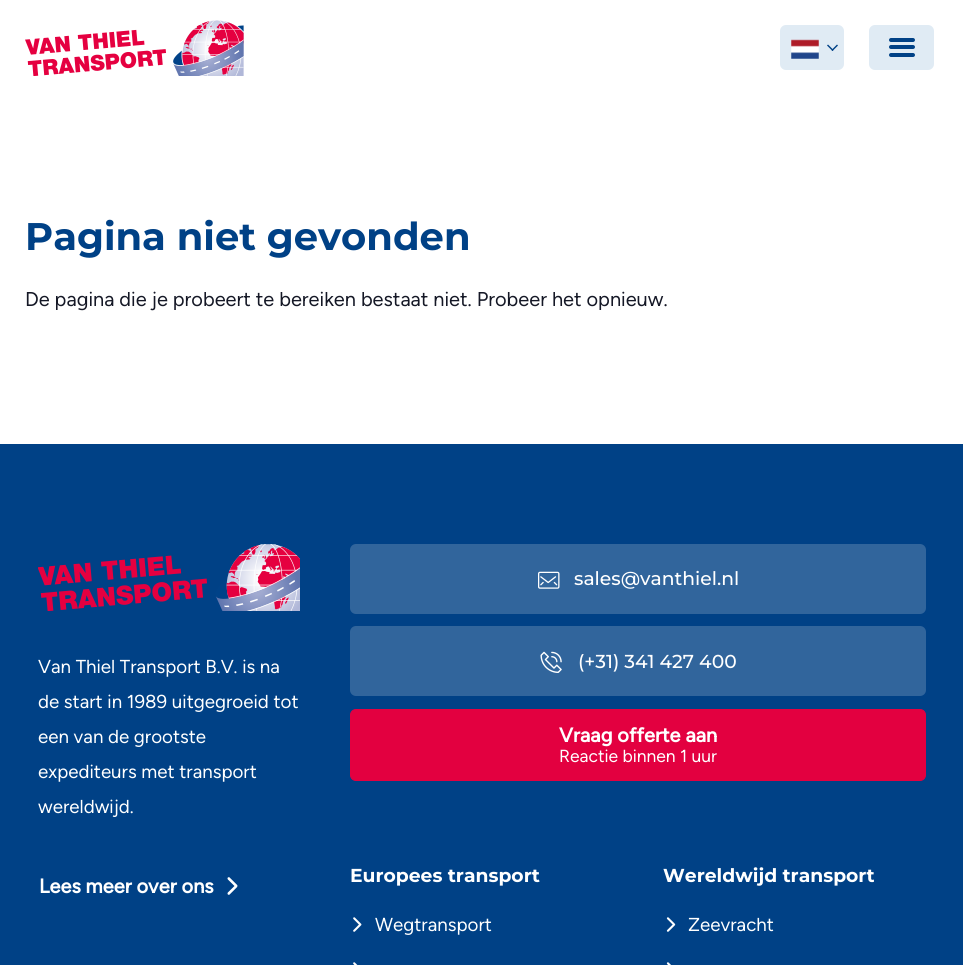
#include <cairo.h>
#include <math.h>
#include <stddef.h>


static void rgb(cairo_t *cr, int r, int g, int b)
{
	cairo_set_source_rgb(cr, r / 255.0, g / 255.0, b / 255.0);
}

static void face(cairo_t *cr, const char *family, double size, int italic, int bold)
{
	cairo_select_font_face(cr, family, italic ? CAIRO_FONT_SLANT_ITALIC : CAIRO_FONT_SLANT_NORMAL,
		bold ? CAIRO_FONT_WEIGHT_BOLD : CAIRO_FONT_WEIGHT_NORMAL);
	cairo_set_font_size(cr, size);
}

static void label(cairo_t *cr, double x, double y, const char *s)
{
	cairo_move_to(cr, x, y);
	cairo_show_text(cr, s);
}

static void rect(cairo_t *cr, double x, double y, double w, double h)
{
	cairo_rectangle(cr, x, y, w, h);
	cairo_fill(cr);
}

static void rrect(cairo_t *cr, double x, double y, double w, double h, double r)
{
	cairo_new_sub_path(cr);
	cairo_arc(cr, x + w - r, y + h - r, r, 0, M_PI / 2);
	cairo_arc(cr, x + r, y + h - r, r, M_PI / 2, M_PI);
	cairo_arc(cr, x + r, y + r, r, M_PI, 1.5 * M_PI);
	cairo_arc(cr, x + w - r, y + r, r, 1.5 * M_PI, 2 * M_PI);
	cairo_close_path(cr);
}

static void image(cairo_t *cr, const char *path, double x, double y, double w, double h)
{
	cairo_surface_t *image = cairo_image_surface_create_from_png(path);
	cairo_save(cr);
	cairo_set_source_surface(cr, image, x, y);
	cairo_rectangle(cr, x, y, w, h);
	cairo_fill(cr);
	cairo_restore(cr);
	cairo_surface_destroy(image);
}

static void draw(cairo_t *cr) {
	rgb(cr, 255, 255, 255);
	cairo_paint(cr);
	image(cr, "image0.png", 25, 20, 219, 56);
	rgb(cr, 224, 235, 244);
	rrect(cr, 780, 25, 64, 45, 6);
	cairo_fill(cr);
	image(cr, "image1.png", 791, 39, 28, 20);
	rgb(cr, 0, 65, 134);
	cairo_new_path(cr);
	cairo_move_to(cr, 831.5, 50);
	cairo_line_to(cr, 837, 44.5);
	cairo_line_to(cr, 838, 45.5);
	cairo_line_to(cr, 832.5, 51);
	cairo_close_path(cr);
	cairo_fill(cr);
	cairo_new_path(cr);
	cairo_move_to(cr, 827, 45.5);
	cairo_line_to(cr, 828, 44.5);
	cairo_line_to(cr, 833.5, 50);
	cairo_line_to(cr, 832.5, 51);
	cairo_close_path(cr);
	cairo_fill(cr);
	rgb(cr, 224, 235, 244);
	rrect(cr, 869, 25, 65, 45, 6);
	cairo_fill(cr);
	rgb(cr, 0, 65, 134);
	rrect(cr, 889, 45, 26, 4, 2);
	cairo_fill(cr);
	rrect(cr, 889, 38, 26, 4, 2);
	cairo_fill(cr);
	rrect(cr, 889, 53, 26, 4, 2);
	cairo_fill(cr);
	face(cr, "Montserrat Thin", 38.5, 0, 0);
	label(cr, 25, 250, "Pagina niet gevonden");
	face(cr, "Figtree Light", 20, 0, 0);
	rgb(cr, 21, 24, 38);
	label(cr, 25, 306, "De pagina die je probeert te bereiken bestaat niet. Probeer het opnieuw.");
	rgb(cr, 0, 65, 134);
	rect(cr, 0, 444, 963, 521);
	image(cr, "image2.png", 38, 544, 262, 67);
	face(cr, "Figtree Light", 18.75, 0, 0);
	rgb(cr, 255, 255, 255);
	label(cr, 38, 673, "Van Thiel Transport B.V. is na");
	label(cr, 38, 708, "de start in 1989 uitgegroeid tot");
	label(cr, 38, 743, "een van de grootste");
	label(cr, 38, 778, "expediteurs met transport");
	label(cr, 38, 813, "wereldwijd.");
	face(cr, "Figtree", 20, 0, 1);
	label(cr, 39, 893, "Lees meer over ons");
	image(cr, "image3.png", 227, 877, 11, 18);
	rgb(cr, 49, 101, 156);
	rrect(cr, 350, 544, 576, 70, 6);
	cairo_fill(cr);
	image(cr, "image4.png", 538, 571, 22, 18);
	face(cr, "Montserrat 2 Thin", 18.75, 0, 0);
	rgb(cr, 255, 255, 255);
	label(cr, 574, 585, "sales@vanthiel.nl");
	rgb(cr, 49, 101, 156);
	rrect(cr, 350, 626, 576, 70, 6);
	cairo_fill(cr);
	image(cr, "image5.png", 540, 651, 22, 22);
	rgb(cr, 255, 255, 255);
	label(cr, 578, 668, "(+31) 341 427 400");
	rgb(cr, 227, 0, 64);
	rrect(cr, 350.5, 709.5, 575, 71, 5.5);
	cairo_fill_preserve(cr);
	cairo_set_line_width(cr, 1);
	cairo_stroke(cr);
	face(cr, "Figtree", 20, 0, 1);
	rgb(cr, 255, 255, 255);
	label(cr, 559, 742, "Vraag offerte aan");
	face(cr, "Figtree Light", 17.5, 0, 0);
	label(cr, 559, 762, "Reactie binnen 1 uur");
	face(cr, "Montserrat Thin", 18.75, 0, 0);
	label(cr, 350, 882, "Europees transport");
	image(cr, "image6.png", 353, 917, 9, 15);
	face(cr, "Figtree Light", 18.75, 0, 0);
	label(cr, 375, 931, "Wegtransport");
	image(cr, "image7.png", 353, 962, 5, 3);
	face(cr, "Montserrat Thin", 18.75, 0, 0);
	label(cr, 663, 882, "Wereldwijd transport");
	image(cr, "image8.png", 666, 917, 10, 15);
	face(cr, "Figtree Light", 18.75, 0, 0);
	label(cr, 688, 931, "Zeevracht");
	image(cr, "image9.png", 666, 962, 5, 3);
}

int main(void) {
	cairo_surface_t *surface = cairo_image_surface_create(CAIRO_FORMAT_RGB24, 963, 965);
	cairo_t *cr = cairo_create(surface);
	cairo_font_options_t *options = cairo_font_options_create();
	cairo_font_options_set_hint_metrics(options, CAIRO_HINT_METRICS_OFF);
	cairo_font_options_set_hint_style(options, CAIRO_HINT_STYLE_NONE);
	cairo_set_font_options(cr, options);
	cairo_set_miter_limit(cr, 4);
	draw(cr);
	cairo_surface_write_to_png(surface, "render.png");
	cairo_font_options_destroy(options);
	cairo_destroy(cr);
	cairo_surface_destroy(surface);
	return 0;
}
